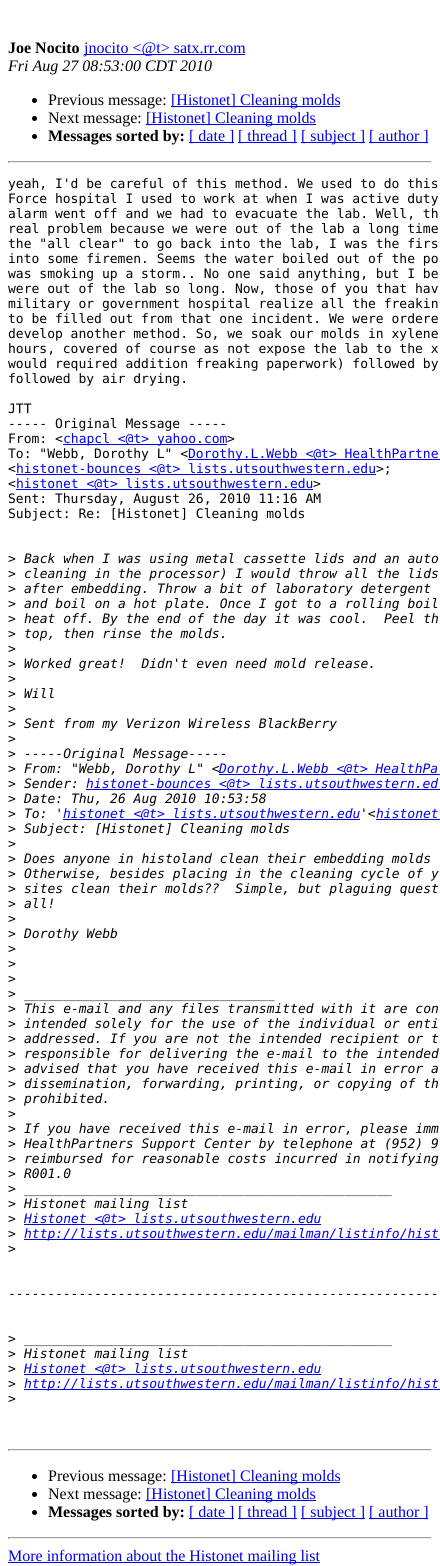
#include <cairo.h>
#include <math.h>
#include <stddef.h>


static void rgb(cairo_t *cr, int r, int g, int b)
{
	cairo_set_source_rgb(cr, r / 255.0, g / 255.0, b / 255.0);
}

static void face(cairo_t *cr, const char *family, double size, int italic, int bold)
{
	cairo_select_font_face(cr, family, italic ? CAIRO_FONT_SLANT_ITALIC : CAIRO_FONT_SLANT_NORMAL,
		bold ? CAIRO_FONT_WEIGHT_BOLD : CAIRO_FONT_WEIGHT_NORMAL);
	cairo_set_font_size(cr, size);
}

static void label(cairo_t *cr, double x, double y, const char *s)
{
	cairo_move_to(cr, x, y);
	cairo_show_text(cr, s);
}

static void rect(cairo_t *cr, double x, double y, double w, double h)
{
	cairo_rectangle(cr, x, y, w, h);
	cairo_fill(cr);
}

static void draw(cairo_t *cr) {
	rgb(cr, 255, 255, 255);
	cairo_paint(cr);
	face(cr, "Liberation Serif", 16, 0, 1);
	rgb(cr, 0, 0, 0);
	label(cr, 8, 53, "Joe Nocito");
	rgb(cr, 0, 0, 238);
	rect(cr, 84, 54, 161, 1);
	face(cr, "Liberation Serif", 16, 0, 0);
	label(cr, 84, 53, "jnocito <@t> satx.rr.com");
	face(cr, "Liberation Serif", 16, 1, 0);
	rgb(cr, 0, 0, 0);
	label(cr, 8, 71, "Fri Aug 27 08:53:00 CDT 2010");
	cairo_new_path(cr);
	cairo_arc(cr, 34.5, 100.5, 2.5, 0, 2 * M_PI);
	cairo_fill(cr);
	face(cr, "Liberation Serif", 16, 0, 0);
	label(cr, 48, 105, "Previous message:");
	rgb(cr, 0, 0, 238);
	rect(cr, 171, 106, 169, 1);
	label(cr, 171, 105, "[Histonet] Cleaning molds");
	rgb(cr, 0, 0, 0);
	cairo_new_path(cr);
	cairo_arc(cr, 34.5, 118.5, 2.5, 0, 2 * M_PI);
	cairo_fill(cr);
	label(cr, 48, 123, "Next message:");
	rgb(cr, 0, 0, 238);
	rect(cr, 146, 124, 170, 1);
	label(cr, 146, 123, "[Histonet] Cleaning molds");
	rgb(cr, 0, 0, 0);
	cairo_new_path(cr);
	cairo_arc(cr, 34.5, 136.5, 2.5, 0, 2 * M_PI);
	cairo_fill(cr);
	face(cr, "Liberation Serif", 16, 0, 1);
	label(cr, 48, 141, "Messages sorted by:");
	rgb(cr, 0, 0, 238);
	rect(cr, 189, 142, 45, 1);
	face(cr, "Liberation Serif", 16, 0, 0);
	label(cr, 189, 141, "[ date ]");
	rect(cr, 238, 142, 59, 1);
	label(cr, 238, 141, "[ thread ]");
	rect(cr, 301, 142, 64, 1);
	label(cr, 301, 141, "[ subject ]");
	rect(cr, 369, 142, 59, 1);
	label(cr, 369, 141, "[ author ]");
	rgb(cr, 159, 159, 159);
	rect(cr, 8, 161, 424, 1);
	rgb(cr, 238, 238, 238);
	rect(cr, 431, 161, 1, 2);
	rect(cr, 8, 162, 424, 1);
	rgb(cr, 159, 159, 159);
	rect(cr, 8, 161, 1, 2);
	face(cr, "DejaVu Sans Mono", 13, 0, 0);
	rgb(cr, 0, 0, 0);
	label(cr, 8, 188, "yeah, I'd be careful of this method. We used to do this");
	label(cr, 8, 203, "Force hospital I used to work at when I was active duty");
	label(cr, 8, 218, "alarm went off and we had to evacuate the lab. Well, th");
	label(cr, 8, 233, "real problem because we were out of the lab a long time");
	label(cr, 8, 248, "the \"all clear\" to go back into the lab, I was the firs");
	label(cr, 8, 263, "into some firemen. Seems the water boiled out of the po");
	label(cr, 8, 278, "was smoking up a storm.. No one said anything, but I be");
	label(cr, 8, 293, "were out of the lab so long. Now, those of you that hav");
	label(cr, 8, 308, "military or government hospital realize all the freakin");
	label(cr, 8, 323, "to be filled out from that one incident. We were ordere");
	label(cr, 8, 338, "develop another method. So, we soak our molds in xylene");
	label(cr, 8, 353, "hours, covered of course as not expose the lab to the x");
	label(cr, 8, 368, "would required addition freaking paperwork) followed by");
	label(cr, 8, 383, "followed by air drying.");
	label(cr, 8, 413, "JTT");
	label(cr, 8, 428, "----- Original Message -----");
	label(cr, 8, 443, "From: <");
	rgb(cr, 0, 0, 238);
	rect(cr, 63, 444, 164, 1);
	label(cr, 63, 443, "chapcl <@t> yahoo.com");
	rgb(cr, 0, 0, 0);
	label(cr, 227, 443, ">");
	label(cr, 8, 458, "To: \"Webb, Dorothy L\" <");
	rgb(cr, 0, 0, 238);
	rect(cr, 188, 459, 252, 1);
	label(cr, 188, 458, "Dorothy.L.Webb <@t> HealthPartne");
	rgb(cr, 0, 0, 0);
	label(cr, 8, 473, "<");
	rgb(cr, 0, 0, 238);
	rect(cr, 16, 474, 360, 1);
	label(cr, 16, 473, "histonet-bounces <@t> lists.utsouthwestern.edu");
	rgb(cr, 0, 0, 0);
	label(cr, 376, 473, ">;");
	label(cr, 8, 488, "<");
	rgb(cr, 0, 0, 238);
	rect(cr, 16, 489, 297, 1);
	label(cr, 16, 488, "histonet <@t> lists.utsouthwestern.edu");
	rgb(cr, 0, 0, 0);
	label(cr, 313, 488, ">");
	label(cr, 8, 503, "Sent: Thursday, August 26, 2010 11:16 AM");
	label(cr, 8, 518, "Subject: Re: [Histonet] Cleaning molds");
	label(cr, 8, 563, ">");
	face(cr, "DejaVu Sans Mono", 13, 1, 0);
	label(cr, 24, 563, "Back when I was using metal cassette lids and an auto");
	face(cr, "DejaVu Sans Mono", 13, 0, 0);
	label(cr, 8, 578, ">");
	face(cr, "DejaVu Sans Mono", 13, 1, 0);
	label(cr, 24, 578, "cleaning in the processor) I would throw all the lids");
	face(cr, "DejaVu Sans Mono", 13, 0, 0);
	label(cr, 8, 593, ">");
	face(cr, "DejaVu Sans Mono", 13, 1, 0);
	label(cr, 24, 593, "after embedding. Throw a bit of laboratory detergent");
	face(cr, "DejaVu Sans Mono", 13, 0, 0);
	label(cr, 8, 608, ">");
	face(cr, "DejaVu Sans Mono", 13, 1, 0);
	label(cr, 24, 608, "and boil on a hot plate. Once I got to a rolling boil");
	face(cr, "DejaVu Sans Mono", 13, 0, 0);
	label(cr, 8, 623, ">");
	face(cr, "DejaVu Sans Mono", 13, 1, 0);
	label(cr, 24, 623, "heat off. By the end of the day it was cool.  Peel th");
	face(cr, "DejaVu Sans Mono", 13, 0, 0);
	label(cr, 8, 638, ">");
	face(cr, "DejaVu Sans Mono", 13, 1, 0);
	label(cr, 24, 638, "top, then rinse the molds.");
	face(cr, "DejaVu Sans Mono", 13, 0, 0);
	label(cr, 8, 653, ">");
	label(cr, 8, 668, ">");
	face(cr, "DejaVu Sans Mono", 13, 1, 0);
	label(cr, 24, 668, "Worked great!  Didn't even need mold release.");
	face(cr, "DejaVu Sans Mono", 13, 0, 0);
	label(cr, 8, 683, ">");
	label(cr, 8, 698, ">");
	face(cr, "DejaVu Sans Mono", 13, 1, 0);
	label(cr, 24, 698, "Will");
	face(cr, "DejaVu Sans Mono", 13, 0, 0);
	label(cr, 8, 713, ">");
	label(cr, 8, 728, ">");
	face(cr, "DejaVu Sans Mono", 13, 1, 0);
	label(cr, 24, 728, "Sent from my Verizon Wireless BlackBerry");
	face(cr, "DejaVu Sans Mono", 13, 0, 0);
	label(cr, 8, 743, ">");
	label(cr, 8, 758, ">");
	face(cr, "DejaVu Sans Mono", 13, 1, 0);
	label(cr, 24, 758, "-----Original Message-----");
	face(cr, "DejaVu Sans Mono", 13, 0, 0);
	label(cr, 8, 773, ">");
	face(cr, "DejaVu Sans Mono", 13, 1, 0);
	label(cr, 24, 773, "From: \"Webb, Dorothy L\" <");
	rgb(cr, 0, 0, 238);
	rect(cr, 219, 774, 221, 1);
	label(cr, 219, 773, "Dorothy.L.Webb <@t> HealthPa");
	face(cr, "DejaVu Sans Mono", 13, 0, 0);
	rgb(cr, 0, 0, 0);
	label(cr, 8, 788, ">");
	face(cr, "DejaVu Sans Mono", 13, 1, 0);
	label(cr, 24, 788, "Sender:");
	rgb(cr, 0, 0, 238);
	rect(cr, 86, 789, 354, 1);
	label(cr, 86, 788, "histonet-bounces <@t> lists.utsouthwestern.ed");
	face(cr, "DejaVu Sans Mono", 13, 0, 0);
	rgb(cr, 0, 0, 0);
	label(cr, 8, 803, ">");
	face(cr, "DejaVu Sans Mono", 13, 1, 0);
	label(cr, 24, 803, "Date: Thu, 26 Aug 2010 10:53:58");
	face(cr, "DejaVu Sans Mono", 13, 0, 0);
	label(cr, 8, 818, ">");
	face(cr, "DejaVu Sans Mono", 13, 1, 0);
	label(cr, 24, 818, "To: '");
	rgb(cr, 0, 0, 238);
	rect(cr, 63, 819, 297, 1);
	label(cr, 63, 818, "histonet <@t> lists.utsouthwestern.edu");
	rgb(cr, 0, 0, 0);
	label(cr, 360, 818, "'<");
	rgb(cr, 0, 0, 238);
	label(cr, 376, 818, "histonet");
	rect(cr, 376, 819, 64, 1);
	face(cr, "DejaVu Sans Mono", 13, 0, 0);
	rgb(cr, 0, 0, 0);
	label(cr, 8, 833, ">");
	face(cr, "DejaVu Sans Mono", 13, 1, 0);
	label(cr, 24, 833, "Subject: [Histonet] Cleaning molds");
	face(cr, "DejaVu Sans Mono", 13, 0, 0);
	label(cr, 8, 848, ">");
	label(cr, 8, 863, ">");
	face(cr, "DejaVu Sans Mono", 13, 1, 0);
	label(cr, 24, 863, "Does anyone in histoland clean their embedding molds");
	face(cr, "DejaVu Sans Mono", 13, 0, 0);
	label(cr, 8, 878, ">");
	face(cr, "DejaVu Sans Mono", 13, 1, 0);
	label(cr, 24, 878, "Otherwise, besides placing in the cleaning cycle of y");
	face(cr, "DejaVu Sans Mono", 13, 0, 0);
	label(cr, 8, 893, ">");
	face(cr, "DejaVu Sans Mono", 13, 1, 0);
	label(cr, 24, 893, "sites clean their molds?\077  Simple, but plaguing quest");
	face(cr, "DejaVu Sans Mono", 13, 0, 0);
	label(cr, 8, 908, ">");
	face(cr, "DejaVu Sans Mono", 13, 1, 0);
	label(cr, 24, 908, "all!");
	face(cr, "DejaVu Sans Mono", 13, 0, 0);
	label(cr, 8, 923, ">");
	label(cr, 8, 938, ">");
	face(cr, "DejaVu Sans Mono", 13, 1, 0);
	label(cr, 24, 938, "Dorothy Webb");
	face(cr, "DejaVu Sans Mono", 13, 0, 0);
	label(cr, 8, 953, ">");
	label(cr, 8, 968, ">");
	label(cr, 8, 983, ">");
	label(cr, 8, 998, ">");
	face(cr, "DejaVu Sans Mono", 13, 1, 0);
	label(cr, 24, 998, "________________________________");
	face(cr, "DejaVu Sans Mono", 13, 0, 0);
	label(cr, 8, 1013, ">");
	face(cr, "DejaVu Sans Mono", 13, 1, 0);
	label(cr, 24, 1013, "This e-mail and any files transmitted with it are con");
	face(cr, "DejaVu Sans Mono", 13, 0, 0);
	label(cr, 8, 1028, ">");
	face(cr, "DejaVu Sans Mono", 13, 1, 0);
	label(cr, 24, 1028, "intended solely for the use of the individual or enti");
	face(cr, "DejaVu Sans Mono", 13, 0, 0);
	label(cr, 8, 1043, ">");
	face(cr, "DejaVu Sans Mono", 13, 1, 0);
	label(cr, 24, 1043, "addressed. If you are not the intended recipient or t");
	face(cr, "DejaVu Sans Mono", 13, 0, 0);
	label(cr, 8, 1058, ">");
	face(cr, "DejaVu Sans Mono", 13, 1, 0);
	label(cr, 24, 1058, "responsible for delivering the e-mail to the intended");
	face(cr, "DejaVu Sans Mono", 13, 0, 0);
	label(cr, 8, 1073, ">");
	face(cr, "DejaVu Sans Mono", 13, 1, 0);
	label(cr, 24, 1073, "advised that you have received this e-mail in error a");
	face(cr, "DejaVu Sans Mono", 13, 0, 0);
	label(cr, 8, 1088, ">");
	face(cr, "DejaVu Sans Mono", 13, 1, 0);
	label(cr, 24, 1088, "dissemination, forwarding, printing, or copying of th");
	face(cr, "DejaVu Sans Mono", 13, 0, 0);
	label(cr, 8, 1103, ">");
	face(cr, "DejaVu Sans Mono", 13, 1, 0);
	label(cr, 24, 1103, "prohibited.");
	face(cr, "DejaVu Sans Mono", 13, 0, 0);
	label(cr, 8, 1118, ">");
	label(cr, 8, 1133, ">");
	face(cr, "DejaVu Sans Mono", 13, 1, 0);
	label(cr, 24, 1133, "If you have received this e-mail in error, please imm");
	face(cr, "DejaVu Sans Mono", 13, 0, 0);
	label(cr, 8, 1148, ">");
	face(cr, "DejaVu Sans Mono", 13, 1, 0);
	label(cr, 24, 1148, "HealthPartners Support Center by telephone at (952) 9");
	face(cr, "DejaVu Sans Mono", 13, 0, 0);
	label(cr, 8, 1163, ">");
	face(cr, "DejaVu Sans Mono", 13, 1, 0);
	label(cr, 24, 1163, "reimbursed for reasonable costs incurred in notifying");
	face(cr, "DejaVu Sans Mono", 13, 0, 0);
	label(cr, 8, 1178, ">");
	face(cr, "DejaVu Sans Mono", 13, 1, 0);
	label(cr, 24, 1178, "R001.0");
	face(cr, "DejaVu Sans Mono", 13, 0, 0);
	label(cr, 8, 1193, ">");
	face(cr, "DejaVu Sans Mono", 13, 1, 0);
	label(cr, 24, 1193, "_______________________________________________");
	face(cr, "DejaVu Sans Mono", 13, 0, 0);
	label(cr, 8, 1208, ">");
	face(cr, "DejaVu Sans Mono", 13, 1, 0);
	label(cr, 24, 1208, "Histonet mailing list");
	face(cr, "DejaVu Sans Mono", 13, 0, 0);
	label(cr, 8, 1223, ">");
	rgb(cr, 0, 0, 238);
	rect(cr, 24, 1224, 297, 1);
	face(cr, "DejaVu Sans Mono", 13, 1, 0);
	label(cr, 24, 1223, "Histonet <@t> lists.utsouthwestern.edu");
	face(cr, "DejaVu Sans Mono", 13, 0, 0);
	rgb(cr, 0, 0, 0);
	label(cr, 8, 1238, ">");
	rgb(cr, 0, 0, 238);
	rect(cr, 24, 1239, 416, 1);
	face(cr, "DejaVu Sans Mono", 13, 1, 0);
	label(cr, 24, 1238, "http://lists.utsouthwestern.edu/mailman/listinfo/hist");
	face(cr, "DejaVu Sans Mono", 13, 0, 0);
	rgb(cr, 0, 0, 0);
	label(cr, 8, 1253, ">");
	label(cr, 8, 1298, "-------------------------------------------------------");
	label(cr, 8, 1343, ">");
	face(cr, "DejaVu Sans Mono", 13, 1, 0);
	label(cr, 24, 1343, "_______________________________________________");
	face(cr, "DejaVu Sans Mono", 13, 0, 0);
	label(cr, 8, 1358, ">");
	face(cr, "DejaVu Sans Mono", 13, 1, 0);
	label(cr, 24, 1358, "Histonet mailing list");
	face(cr, "DejaVu Sans Mono", 13, 0, 0);
	label(cr, 8, 1373, ">");
	rgb(cr, 0, 0, 238);
	rect(cr, 24, 1374, 297, 1);
	face(cr, "DejaVu Sans Mono", 13, 1, 0);
	label(cr, 24, 1373, "Histonet <@t> lists.utsouthwestern.edu");
	face(cr, "DejaVu Sans Mono", 13, 0, 0);
	rgb(cr, 0, 0, 0);
	label(cr, 8, 1388, ">");
	rgb(cr, 0, 0, 238);
	rect(cr, 24, 1389, 416, 1);
	face(cr, "DejaVu Sans Mono", 13, 1, 0);
	label(cr, 24, 1388, "http://lists.utsouthwestern.edu/mailman/listinfo/hist");
	face(cr, "DejaVu Sans Mono", 13, 0, 0);
	rgb(cr, 0, 0, 0);
	label(cr, 8, 1403, ">");
	rgb(cr, 159, 159, 159);
	rect(cr, 8, 1449, 424, 1);
	rgb(cr, 238, 238, 238);
	rect(cr, 431, 1449, 1, 2);
	rect(cr, 8, 1450, 424, 1);
	rgb(cr, 159, 159, 159);
	rect(cr, 8, 1449, 1, 2);
	rgb(cr, 0, 0, 0);
	cairo_new_path(cr);
	cairo_arc(cr, 34.5, 1476.5, 2.5, 0, 2 * M_PI);
	cairo_fill(cr);
	face(cr, "Liberation Serif", 16, 0, 0);
	label(cr, 48, 1481, "Previous message:");
	rgb(cr, 0, 0, 238);
	rect(cr, 171, 1482, 169, 1);
	label(cr, 171, 1481, "[Histonet] Cleaning molds");
	rgb(cr, 0, 0, 0);
	cairo_new_path(cr);
	cairo_arc(cr, 34.5, 1494.5, 2.5, 0, 2 * M_PI);
	cairo_fill(cr);
	label(cr, 48, 1499, "Next message:");
	rgb(cr, 0, 0, 238);
	rect(cr, 146, 1500, 170, 1);
	label(cr, 146, 1499, "[Histonet] Cleaning molds");
	rgb(cr, 0, 0, 0);
	cairo_new_path(cr);
	cairo_arc(cr, 34.5, 1512.5, 2.5, 0, 2 * M_PI);
	cairo_fill(cr);
	face(cr, "Liberation Serif", 16, 0, 1);
	label(cr, 48, 1517, "Messages sorted by:");
	rgb(cr, 0, 0, 238);
	rect(cr, 189, 1518, 45, 1);
	face(cr, "Liberation Serif", 16, 0, 0);
	label(cr, 189, 1517, "[ date ]");
	rect(cr, 238, 1518, 59, 1);
	label(cr, 238, 1517, "[ thread ]");
	rect(cr, 301, 1518, 64, 1);
	label(cr, 301, 1517, "[ subject ]");
	rect(cr, 369, 1518, 59, 1);
	label(cr, 369, 1517, "[ author ]");
	rgb(cr, 159, 159, 159);
	rect(cr, 8, 1537, 424, 1);
	rgb(cr, 238, 238, 238);
	rect(cr, 431, 1537, 1, 2);
	rect(cr, 8, 1538, 424, 1);
	rgb(cr, 159, 159, 159);
	rect(cr, 8, 1537, 1, 2);
	rgb(cr, 0, 0, 238);
	rect(cr, 8, 1562, 312, 1);
	label(cr, 8, 1561, "More information about the Histonet mailing list");
}

int main(void) {
	cairo_surface_t *surface = cairo_image_surface_create(CAIRO_FORMAT_RGB24, 440, 1566);
	cairo_t *cr = cairo_create(surface);
	cairo_font_options_t *options = cairo_font_options_create();
	cairo_font_options_set_hint_metrics(options, CAIRO_HINT_METRICS_OFF);
	cairo_font_options_set_hint_style(options, CAIRO_HINT_STYLE_NONE);
	cairo_set_font_options(cr, options);
	cairo_set_miter_limit(cr, 4);
	draw(cr);
	cairo_surface_write_to_png(surface, "render.png");
	cairo_font_options_destroy(options);
	cairo_destroy(cr);
	cairo_surface_destroy(surface);
	return 0;
}
